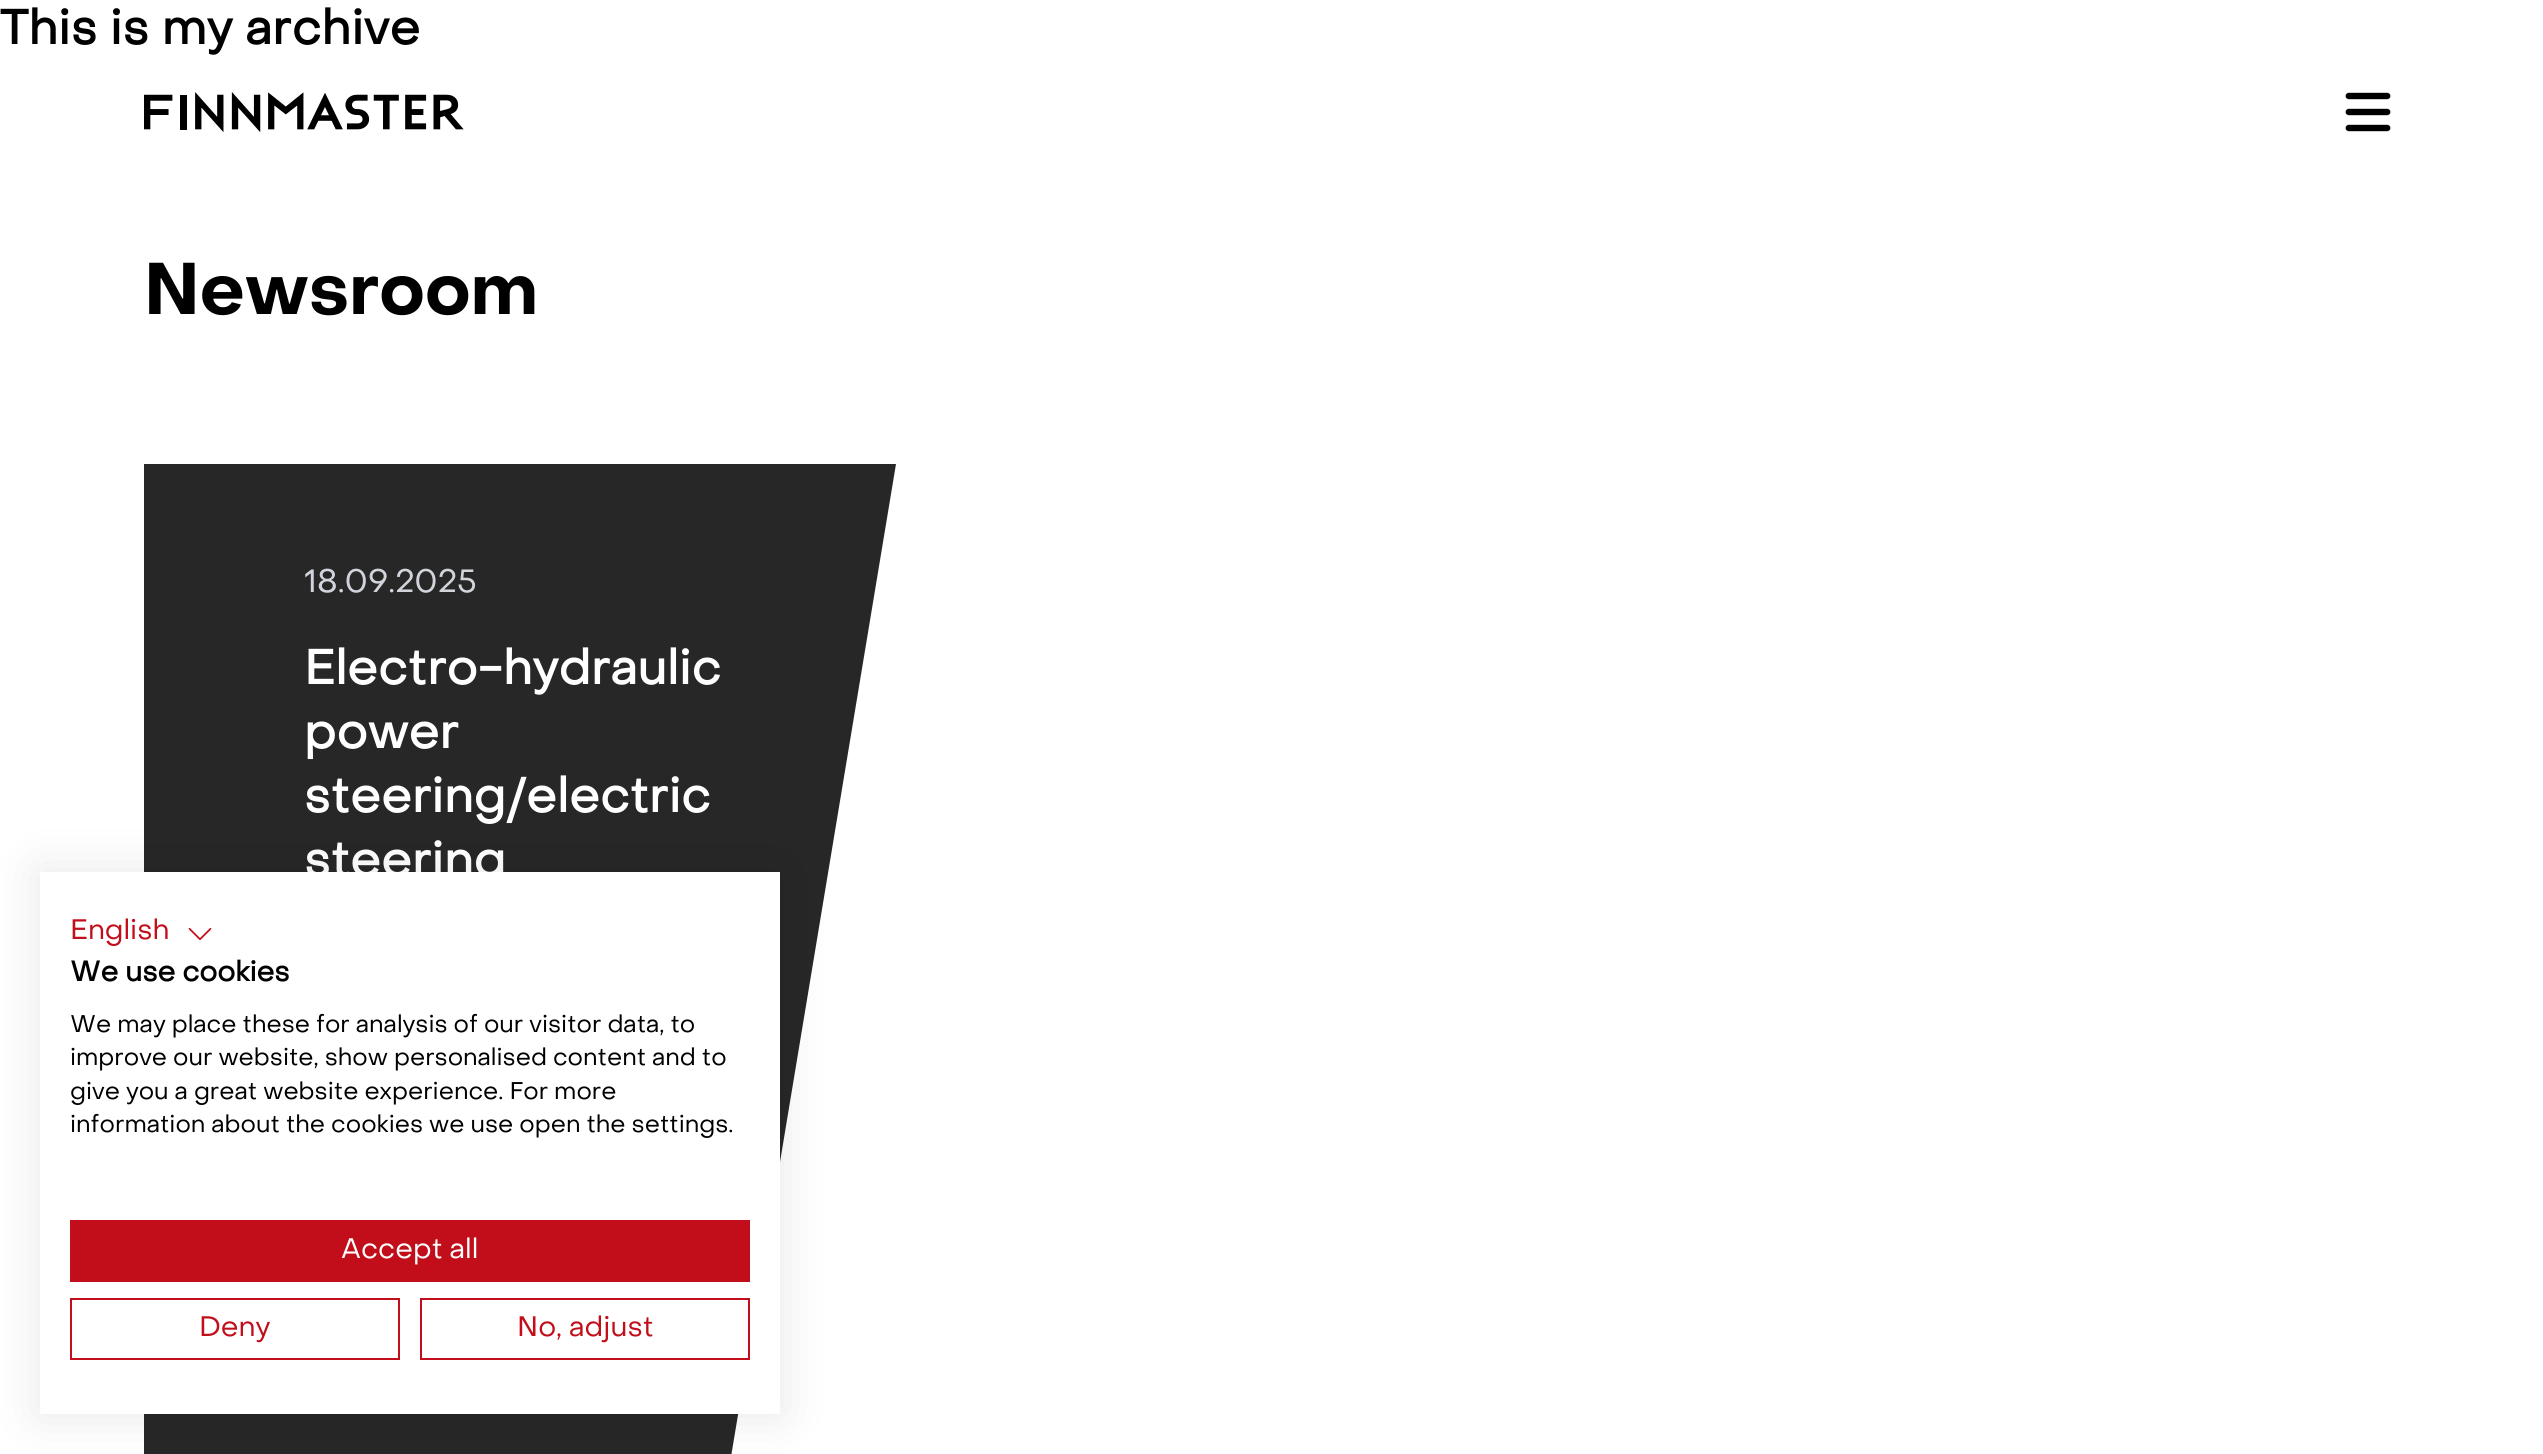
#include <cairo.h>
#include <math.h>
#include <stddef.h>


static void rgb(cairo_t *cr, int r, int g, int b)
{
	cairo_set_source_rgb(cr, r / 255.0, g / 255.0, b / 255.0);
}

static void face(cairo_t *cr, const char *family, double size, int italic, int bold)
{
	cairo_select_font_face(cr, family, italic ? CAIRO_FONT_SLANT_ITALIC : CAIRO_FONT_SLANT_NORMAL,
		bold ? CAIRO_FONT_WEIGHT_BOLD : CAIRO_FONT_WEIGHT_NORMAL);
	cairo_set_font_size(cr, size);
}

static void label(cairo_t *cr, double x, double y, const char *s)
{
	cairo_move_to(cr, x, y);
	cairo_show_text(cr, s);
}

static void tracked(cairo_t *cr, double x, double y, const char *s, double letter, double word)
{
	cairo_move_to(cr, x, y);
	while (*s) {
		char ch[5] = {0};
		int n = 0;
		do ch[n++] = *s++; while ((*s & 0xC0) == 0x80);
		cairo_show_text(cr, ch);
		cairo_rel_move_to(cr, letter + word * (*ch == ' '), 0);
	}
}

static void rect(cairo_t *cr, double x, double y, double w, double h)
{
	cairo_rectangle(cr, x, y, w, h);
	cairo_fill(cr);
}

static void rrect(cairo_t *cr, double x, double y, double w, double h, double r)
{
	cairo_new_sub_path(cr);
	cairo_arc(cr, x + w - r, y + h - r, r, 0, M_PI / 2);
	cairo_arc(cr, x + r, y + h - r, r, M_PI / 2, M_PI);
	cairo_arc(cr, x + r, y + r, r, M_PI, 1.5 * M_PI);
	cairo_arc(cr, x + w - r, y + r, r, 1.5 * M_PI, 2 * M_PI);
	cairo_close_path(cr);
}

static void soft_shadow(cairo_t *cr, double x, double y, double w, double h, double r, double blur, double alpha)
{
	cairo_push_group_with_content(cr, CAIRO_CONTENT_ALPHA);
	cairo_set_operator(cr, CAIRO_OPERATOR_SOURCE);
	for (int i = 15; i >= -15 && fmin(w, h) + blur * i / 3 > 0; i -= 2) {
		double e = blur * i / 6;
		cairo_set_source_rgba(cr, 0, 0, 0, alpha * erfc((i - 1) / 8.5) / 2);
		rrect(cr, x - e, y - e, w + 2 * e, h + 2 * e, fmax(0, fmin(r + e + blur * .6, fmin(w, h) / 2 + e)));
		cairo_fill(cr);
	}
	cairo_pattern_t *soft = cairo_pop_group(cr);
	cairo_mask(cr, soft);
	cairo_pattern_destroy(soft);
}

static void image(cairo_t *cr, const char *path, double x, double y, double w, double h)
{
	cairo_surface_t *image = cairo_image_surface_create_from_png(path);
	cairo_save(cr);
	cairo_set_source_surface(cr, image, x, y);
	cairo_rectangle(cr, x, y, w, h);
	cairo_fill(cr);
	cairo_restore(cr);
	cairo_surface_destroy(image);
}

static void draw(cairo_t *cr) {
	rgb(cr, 255, 255, 255);
	cairo_paint(cr);
	face(cr, "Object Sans", 48, 0, 1);
	rgb(cr, 0, 0, 0);
	tracked(cr, 0, 44, "This is my archive", 0.5, 0);
	face(cr, "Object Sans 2", 72, 0, 1);
	label(cr, 144, 314, "Newsroom");
	rgb(cr, 39, 39, 39);
	cairo_new_path(cr);
	cairo_move_to(cr, 144, 464);
	cairo_line_to(cr, 144, 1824);
	cairo_line_to(cr, 670, 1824);
	cairo_line_to(cr, 896, 464);
	cairo_close_path(cr);
	cairo_fill(cr);
	face(cr, "Object Sans", 32, 0, 0);
	rgb(cr, 209, 213, 219);
	label(cr, 304, 592, "18.09.2025");
	face(cr, "Object Sans", 48, 0, 1);
	rgb(cr, 255, 255, 255);
	tracked(cr, 304, 684, "Electro-hydraulic", 0.5, 0);
	tracked(cr, 304, 748, "power", 0.5, 0);
	tracked(cr, 304, 812, "steering/electric", 0.5, 0);
	tracked(cr, 304, 876, "steering", 0.5, 0);
	image(cr, "image0.png", 144, 92, 320, 40);
	image(cr, "image1.png", 2345, 92, 46, 40);
	rgb(cr, 0, 0, 0);
	soft_shadow(cr, 40, 872, 740, 542, 0, 24, 0.1);
	rgb(cr, 255, 255, 255);
	rect(cr, 40, 872, 740, 542);
	face(cr, "Object Sans", 28, 0, 0);
	rgb(cr, 194, 14, 26);
	label(cr, 70, 939, "English");
	image(cr, "image2.png", 188, 927, 24, 13);
	face(cr, "Object Sans", 28, 0, 1);
	rgb(cr, 0, 0, 0);
	label(cr, 70, 981, "We use cookies");
	face(cr, "Object Sans", 24, 0, 0);
	label(cr, 70, 1032, "We may place these for analysis of our visitor data, to");
	label(cr, 70, 1065, "improve our website, show personalised content and to");
	label(cr, 70, 1099, "give you a great website experience. For more");
	label(cr, 70, 1132, "information about the cookies we use open the settings.");
	rgb(cr, 194, 14, 26);
	rect(cr, 70, 1220, 680, 62);
	face(cr, "Object Sans", 28, 0, 0);
	rgb(cr, 255, 255, 255);
	label(cr, 341, 1258, "Accept all");
	cairo_rectangle(cr, 71, 1299, 328, 60);
	rgb(cr, 194, 14, 26);
	cairo_stroke(cr);
	label(cr, 199, 1336, "Deny");
	cairo_rectangle(cr, 421, 1299, 328, 60);
	cairo_stroke(cr);
	label(cr, 517, 1336, "No, adjust");
}

int main(void) {
	cairo_surface_t *surface = cairo_image_surface_create(CAIRO_FORMAT_RGB24, 2543, 1454);
	cairo_t *cr = cairo_create(surface);
	cairo_font_options_t *options = cairo_font_options_create();
	cairo_font_options_set_hint_metrics(options, CAIRO_HINT_METRICS_OFF);
	cairo_font_options_set_hint_style(options, CAIRO_HINT_STYLE_NONE);
	cairo_set_font_options(cr, options);
	cairo_set_miter_limit(cr, 4);
	draw(cr);
	cairo_surface_write_to_png(surface, "render.png");
	cairo_font_options_destroy(options);
	cairo_destroy(cr);
	cairo_surface_destroy(surface);
	return 0;
}
